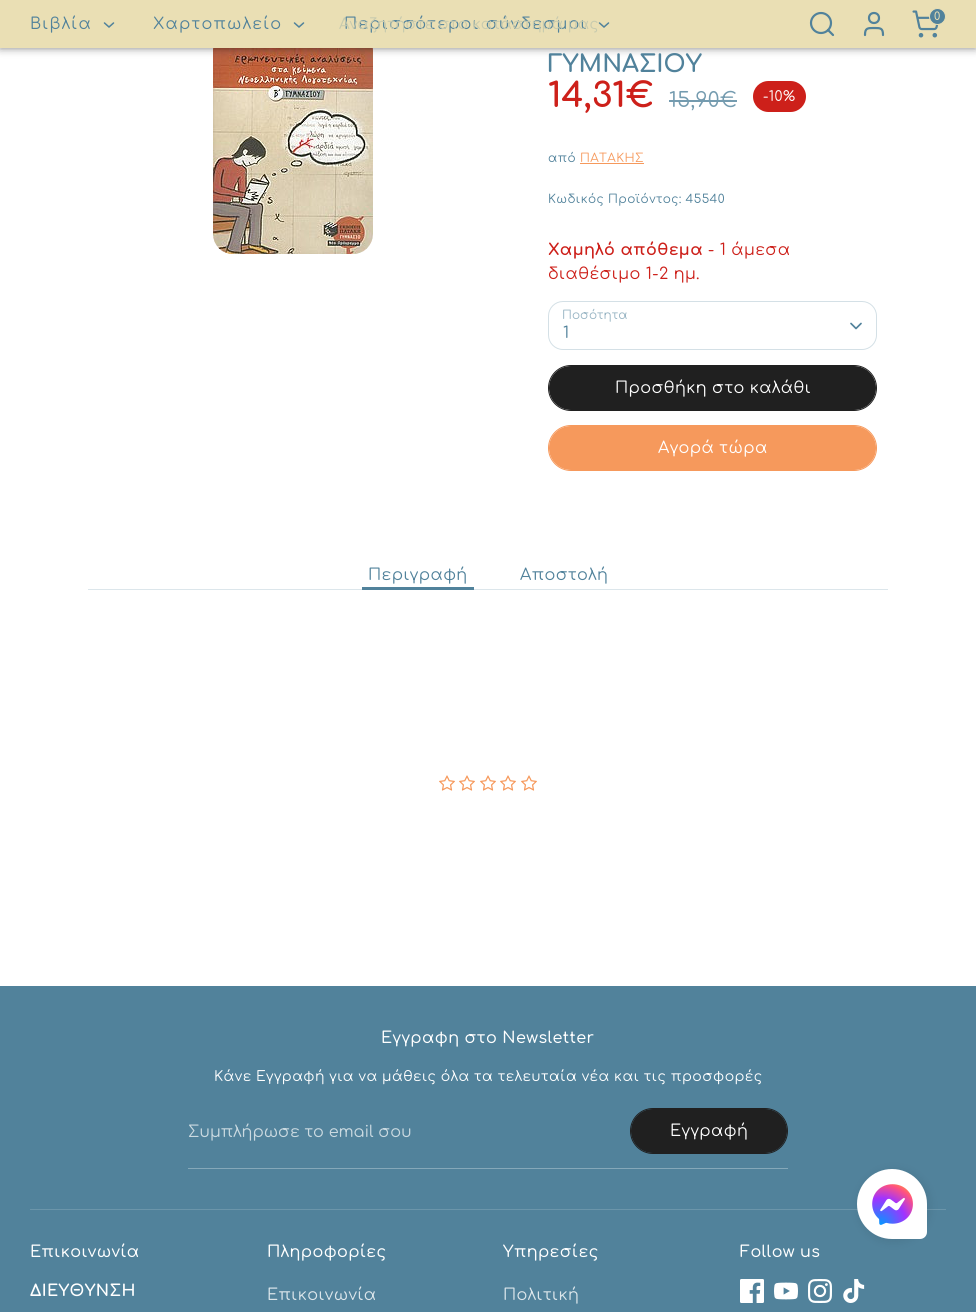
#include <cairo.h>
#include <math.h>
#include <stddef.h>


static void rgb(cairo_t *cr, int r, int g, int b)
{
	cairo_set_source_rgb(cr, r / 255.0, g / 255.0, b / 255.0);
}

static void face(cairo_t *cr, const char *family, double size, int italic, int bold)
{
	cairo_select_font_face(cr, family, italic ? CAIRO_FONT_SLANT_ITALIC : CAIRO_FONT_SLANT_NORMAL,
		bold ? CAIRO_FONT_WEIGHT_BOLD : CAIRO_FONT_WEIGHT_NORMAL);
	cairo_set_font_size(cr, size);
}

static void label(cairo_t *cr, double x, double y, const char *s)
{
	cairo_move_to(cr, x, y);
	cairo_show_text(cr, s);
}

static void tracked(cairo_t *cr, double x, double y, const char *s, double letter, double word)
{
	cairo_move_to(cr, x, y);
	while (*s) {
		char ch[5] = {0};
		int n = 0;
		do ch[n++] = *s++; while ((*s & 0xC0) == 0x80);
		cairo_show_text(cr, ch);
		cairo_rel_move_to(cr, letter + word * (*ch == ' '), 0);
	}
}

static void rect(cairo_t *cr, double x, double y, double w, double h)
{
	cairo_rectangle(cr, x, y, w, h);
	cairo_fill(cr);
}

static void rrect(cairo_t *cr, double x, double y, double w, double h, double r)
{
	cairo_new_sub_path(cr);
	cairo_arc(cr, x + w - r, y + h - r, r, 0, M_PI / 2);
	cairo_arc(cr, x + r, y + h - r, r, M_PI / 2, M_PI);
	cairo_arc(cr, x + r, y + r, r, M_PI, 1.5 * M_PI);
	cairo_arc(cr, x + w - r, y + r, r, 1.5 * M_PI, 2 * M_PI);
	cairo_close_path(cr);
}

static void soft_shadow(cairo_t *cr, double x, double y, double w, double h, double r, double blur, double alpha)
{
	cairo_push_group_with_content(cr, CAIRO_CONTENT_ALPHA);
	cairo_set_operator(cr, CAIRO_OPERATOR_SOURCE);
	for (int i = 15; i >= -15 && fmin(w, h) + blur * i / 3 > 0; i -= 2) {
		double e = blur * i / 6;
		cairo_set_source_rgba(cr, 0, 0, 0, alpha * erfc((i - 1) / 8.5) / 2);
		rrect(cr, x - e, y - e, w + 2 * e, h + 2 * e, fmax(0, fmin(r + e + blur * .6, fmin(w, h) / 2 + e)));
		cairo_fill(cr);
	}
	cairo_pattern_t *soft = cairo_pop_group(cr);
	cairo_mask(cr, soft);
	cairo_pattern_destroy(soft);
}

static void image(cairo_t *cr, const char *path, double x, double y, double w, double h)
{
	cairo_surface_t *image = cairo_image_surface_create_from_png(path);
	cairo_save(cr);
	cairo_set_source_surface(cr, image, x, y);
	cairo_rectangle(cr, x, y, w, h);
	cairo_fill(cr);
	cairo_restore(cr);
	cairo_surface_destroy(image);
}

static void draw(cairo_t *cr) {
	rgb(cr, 255, 255, 255);
	cairo_paint(cr);
	image(cr, "image1.png", 213, 48, 160, 206);
	rgb(cr, 0, 0, 0);
	soft_shadow(cr, 0, -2, 976, 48, 0, 5, 0.75);
	rgb(cr, 234, 223, 180);
	rect(cr, 0, 0, 976, 48);
	face(cr, "Comfortaa", 16, 0, 0);
	rgb(cr, 81, 130, 155);
	tracked(cr, 30, 29, "Βιβλία", 1.2, 0);
	cairo_new_path(cr);
	cairo_move_to(cr, 104.5, 23);
	cairo_line_to(cr, 109, 27);
	cairo_line_to(cr, 113.5, 23);
	cairo_set_line_width(cr, 1.5);
	cairo_set_line_cap(cr, CAIRO_LINE_CAP_ROUND);
	cairo_stroke(cr);
	tracked(cr, 153, 29, "Χαρτοπωλείο", 1.2, 0);
	cairo_new_path(cr);
	cairo_move_to(cr, 294.5, 23);
	cairo_line_to(cr, 299, 27);
	cairo_line_to(cr, 303.5, 23);
	cairo_stroke(cr);
	tracked(cr, 344, 29, "Περισσότεροι σύνδεσμοι", 1.2, 0);
	cairo_new_path(cr);
	cairo_move_to(cr, 599.5, 23);
	cairo_line_to(cr, 604, 27);
	cairo_line_to(cr, 608.5, 23);
	cairo_stroke(cr);
	face(cr, "Comfortaa", 15, 0, 0);
	rgb(cr, 199, 202, 174);
	label(cr, 339, 29, "Αναζητήστε στο κατάστημά μας");
	cairo_new_path(cr);
	cairo_arc(cr, 821, 23, 10, 0, 2 * M_PI);
	rgb(cr, 81, 130, 155);
	cairo_set_line_width(cr, 2.2);
	cairo_set_line_cap(cr, CAIRO_LINE_CAP_BUTT);
	cairo_stroke(cr);
	cairo_new_path(cr);
	cairo_move_to(cr, 833, 35);
	cairo_line_to(cr, 828, 30);
	cairo_set_line_cap(cr, CAIRO_LINE_CAP_ROUND);
	cairo_set_line_join(cr, CAIRO_LINE_JOIN_ROUND);
	cairo_stroke(cr);
	cairo_new_path(cr);
	cairo_move_to(cr, 883, 35);
	cairo_curve_to(cr, 883, 28, 880.5, 28, 874, 28);
	cairo_curve_to(cr, 867.5, 28, 865, 28, 865, 35);
	cairo_stroke(cr);
	cairo_arc(cr, 874, 18, 5, 0, 2 * M_PI);
	cairo_set_line_cap(cr, CAIRO_LINE_CAP_BUTT);
	cairo_set_line_join(cr, CAIRO_LINE_JOIN_MITER);
	cairo_stroke(cr);
	image(cr, "image0.png", 912, 10, 27, 28);
	cairo_arc(cr, 937.5, 16.5, 8, 0, 2 * M_PI);
	cairo_fill_preserve(cr);
	rgb(cr, 234, 223, 180);
	cairo_set_line_width(cr, 1);
	cairo_stroke(cr);
	face(cr, "Comfortaa Medium", 11, 0, 0);
	label(cr, 934, 20, "0");
	face(cr, "Comfortaa", 24, 0, 1);
	rgb(cr, 81, 130, 155);
	label(cr, 548, 72, "ΓΥΜΝΑΣΙΟΥ");
	face(cr, "Comfortaa", 34, 0, 1);
	rgb(cr, 205, 32, 26);
	label(cr, 548, 107, "14,31€");
	face(cr, "Comfortaa", 20.5, 0, 0);
	rgb(cr, 116, 155, 175);
	tracked(cr, 669, 107, "15,90€", 0.4, 0);
	rect(cr, 669, 100, 68, 2);
	rgb(cr, 205, 32, 26);
	rrect(cr, 753, 81, 53, 31, 15.5);
	cairo_fill(cr);
	face(cr, "Comfortaa", 14, 0, 0);
	rgb(cr, 255, 255, 255);
	tracked(cr, 763, 101, "-10%", 0.4, 0);
	face(cr, "Comfortaa", 12, 0, 0);
	rgb(cr, 81, 130, 155);
	tracked(cr, 548, 162, "από", 0.4, 0);
	rgb(cr, 246, 153, 92);
	tracked(cr, 580, 162, "ΠΑΤΑΚΗΣ", 0.4, 0);
	rect(cr, 580, 163, 64, 1);
	rgb(cr, 81, 130, 155);
	tracked(cr, 548, 203, "Κωδικός Προϊόντος: 45540", 0.4, 0);
	face(cr, "Comfortaa", 16, 0, 1);
	rgb(cr, 205, 32, 26);
	tracked(cr, 548, 255, "Χαμηλό απόθεμα", 0.4, 0);
	face(cr, "Comfortaa", 16, 0, 0);
	tracked(cr, 708, 255, "- 1 άμεσα", 0.4, 0);
	tracked(cr, 548, 279, "διαθέσιμο 1-2 ημ.", 0.4, 0);
	face(cr, "Comfortaa", 12, 0, 0);
	rgb(cr, 151, 180, 195);
	label(cr, 562, 319, "Ποσότητα");
	rrect(cr, 548.5, 301.5, 328, 48, 14.5);
	rgb(cr, 212, 224, 230);
	cairo_stroke(cr);
	face(cr, "Comfortaa", 16, 0, 0);
	rgb(cr, 81, 130, 155);
	tracked(cr, 563, 338, "1", 0.4, 0);
	cairo_new_path(cr);
	cairo_move_to(cr, 851, 323.5);
	cairo_line_to(cr, 856, 328.5);
	cairo_line_to(cr, 861, 323.5);
	cairo_set_line_width(cr, 1.7);
	cairo_set_line_cap(cr, CAIRO_LINE_CAP_ROUND);
	cairo_set_line_join(cr, CAIRO_LINE_JOIN_ROUND);
	cairo_stroke(cr);
	rrect(cr, 548.5, 365.5, 328, 45, 22.5);
	rgb(cr, 32, 32, 32);
	cairo_set_line_width(cr, 1);
	cairo_set_line_cap(cr, CAIRO_LINE_CAP_BUTT);
	cairo_set_line_join(cr, CAIRO_LINE_JOIN_MITER);
	cairo_stroke(cr);
	rrect(cr, 549, 366, 327, 44, 22);
	cairo_fill(cr);
	rgb(cr, 255, 255, 255);
	tracked(cr, 615, 393, "Προσθήκη στο καλάθι", 0.4, 0);
	rrect(cr, 548.5, 425.5, 328, 45, 22.5);
	rgb(cr, 246, 153, 92);
	cairo_stroke(cr);
	rrect(cr, 549, 426, 327, 44, 22);
	cairo_fill(cr);
	rgb(cr, 255, 255, 255);
	tracked(cr, 658, 453, "Αγορά τώρα", 0.4, 0);
	rgb(cr, 220, 230, 235);
	rect(cr, 88, 589, 800, 1);
	rgb(cr, 81, 130, 155);
	tracked(cr, 368, 580, "Περιγραφή", 0.4, 0);
	rect(cr, 362, 587, 112, 3);
	tracked(cr, 520, 580, "Αποστολή", 0.4, 0);
	image(cr, "image2.png", 439, 775, 16, 16);
	image(cr, "image2.png", 459, 775, 16, 16);
	image(cr, "image2.png", 480, 775, 16, 16);
	image(cr, "image2.png", 500, 775, 16, 16);
	image(cr, "image2.png", 521, 775, 16, 16);
	rect(cr, 0, 986, 976, 326);
	face(cr, "Comfortaa Medium", 16, 0, 0);
	rgb(cr, 255, 255, 255);
	tracked(cr, 381, 1043, "Εγγραφη στο Newsletter", 0.4, 0);
	face(cr, "Comfortaa", 14, 0, 0);
	tracked(cr, 214, 1081, "Κάνε Εγγραφή για να μάθεις όλα τα τελευταία νέα και τις προσφορές", 0.4, 0);
	rgb(cr, 133, 168, 185);
	rect(cr, 188, 1168, 600, 1);
	face(cr, "Comfortaa", 16, 0, 0);
	rgb(cr, 203, 218, 225);
	label(cr, 188, 1137, "Συμπλήρωσε το email σου");
	rrect(cr, 630.5, 1108.5, 157, 45, 22.5);
	rgb(cr, 32, 32, 32);
	cairo_stroke(cr);
	rrect(cr, 631, 1109, 156, 44, 22);
	cairo_fill(cr);
	rgb(cr, 255, 255, 255);
	tracked(cr, 670, 1136, "Εγγραφή", 0.4, 0);
	rgb(cr, 107, 149, 170);
	rect(cr, 30, 1209, 916, 1);
	face(cr, "Comfortaa Medium", 16, 0, 0);
	rgb(cr, 255, 255, 255);
	tracked(cr, 30, 1257, "Επικοινωνία", 0.4, 0);
	face(cr, "Comfortaa", 16, 0, 1);
	tracked(cr, 30, 1296, "ΔΙΕΥΘΥΝΣΗ", 0.4, 0);
	face(cr, "Comfortaa Medium", 16, 0, 0);
	tracked(cr, 267, 1257, "Πληροφορίες", 0.4, 0);
	face(cr, "Comfortaa", 16, 0, 0);
	rgb(cr, 220, 230, 235);
	tracked(cr, 267, 1300, "Επικοινωνία", 0.4, 0);
	face(cr, "Comfortaa Medium", 16, 0, 0);
	rgb(cr, 255, 255, 255);
	tracked(cr, 503, 1257, "Υπηρεσίες", 0.4, 0);
	face(cr, "Comfortaa", 16, 0, 0);
	rgb(cr, 220, 230, 235);
	tracked(cr, 503, 1300, "Πολιτική", 0.4, 0);
	face(cr, "Comfortaa Medium", 16, 0, 0);
	rgb(cr, 255, 255, 255);
	tracked(cr, 740, 1257, "Follow us", 0.4, 0);
	image(cr, "image3.png", 740, 1279, 24, 24);
	image(cr, "image4.png", 774, 1282, 24, 18);
	image(cr, "image5.png", 808, 1279, 24, 24);
	image(cr, "image6.png", 843, 1279, 22, 24);
	rgb(cr, 0, 0, 0);
	soft_shadow(cr, 857, 1169, 74, 74, 37, 4.5, 0.07);
	image(cr, "image7.png", 857, 1169, 70, 70);
}

int main(void) {
	cairo_surface_t *surface = cairo_image_surface_create(CAIRO_FORMAT_RGB24, 976, 1312);
	cairo_t *cr = cairo_create(surface);
	cairo_font_options_t *options = cairo_font_options_create();
	cairo_font_options_set_hint_metrics(options, CAIRO_HINT_METRICS_OFF);
	cairo_font_options_set_hint_style(options, CAIRO_HINT_STYLE_NONE);
	cairo_set_font_options(cr, options);
	cairo_set_miter_limit(cr, 4);
	draw(cr);
	cairo_surface_write_to_png(surface, "render.png");
	cairo_font_options_destroy(options);
	cairo_destroy(cr);
	cairo_surface_destroy(surface);
	return 0;
}
